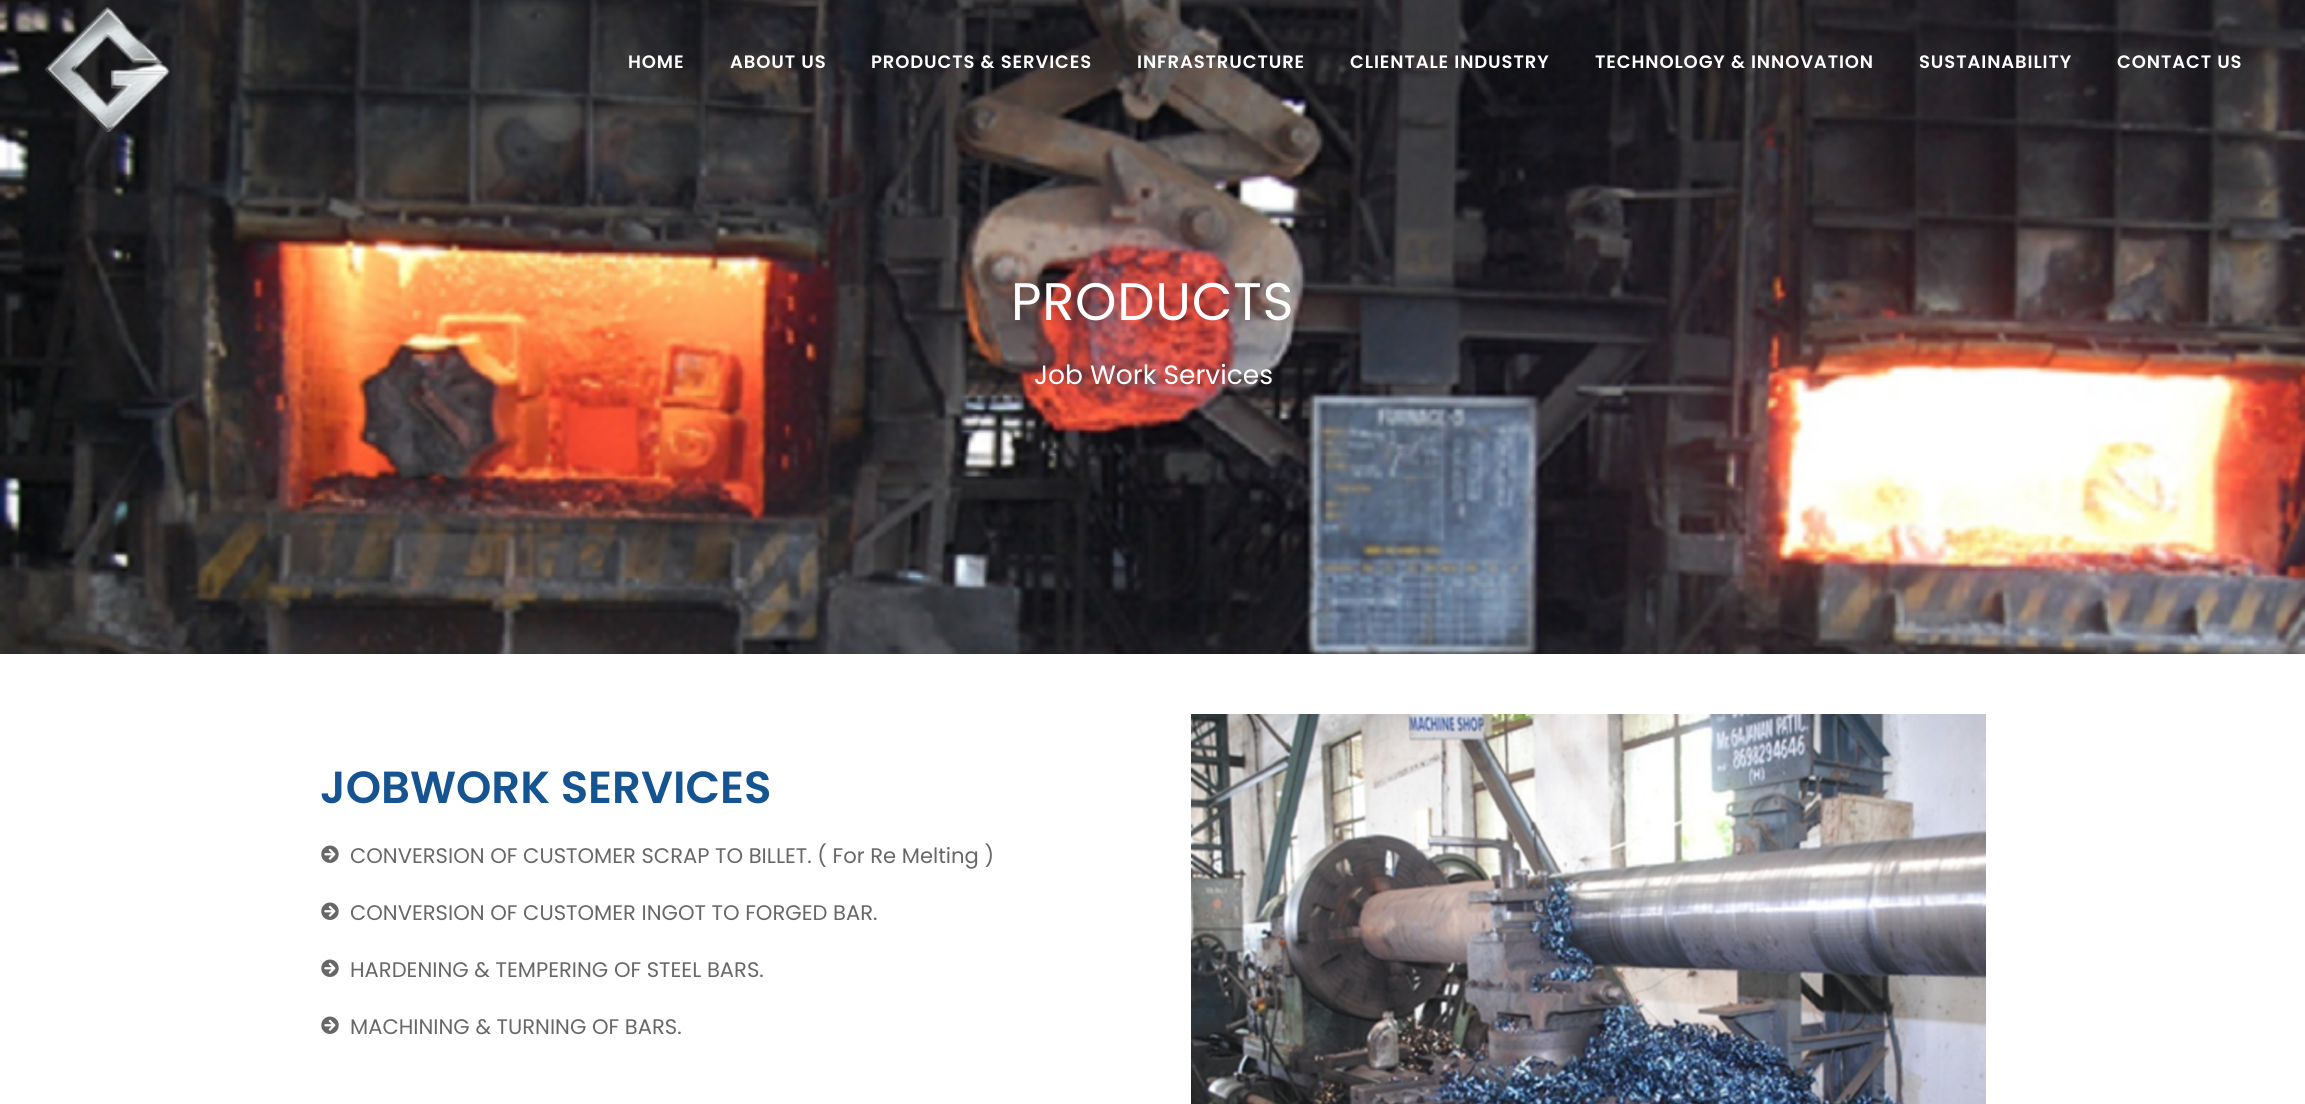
#include <cairo.h>
#include <math.h>
#include <stddef.h>


static void rgb(cairo_t *cr, int r, int g, int b)
{
	cairo_set_source_rgb(cr, r / 255.0, g / 255.0, b / 255.0);
}

static void face(cairo_t *cr, const char *family, double size, int italic, int bold)
{
	cairo_select_font_face(cr, family, italic ? CAIRO_FONT_SLANT_ITALIC : CAIRO_FONT_SLANT_NORMAL,
		bold ? CAIRO_FONT_WEIGHT_BOLD : CAIRO_FONT_WEIGHT_NORMAL);
	cairo_set_font_size(cr, size);
}

static void label(cairo_t *cr, double x, double y, const char *s)
{
	cairo_move_to(cr, x, y);
	cairo_show_text(cr, s);
}

static void tracked(cairo_t *cr, double x, double y, const char *s, double letter, double word)
{
	cairo_move_to(cr, x, y);
	while (*s) {
		char ch[5] = {0};
		int n = 0;
		do ch[n++] = *s++; while ((*s & 0xC0) == 0x80);
		cairo_show_text(cr, ch);
		cairo_rel_move_to(cr, letter + word * (*ch == ' '), 0);
	}
}

static void image(cairo_t *cr, const char *path, double x, double y, double w, double h)
{
	cairo_surface_t *image = cairo_image_surface_create_from_png(path);
	cairo_save(cr);
	cairo_set_source_surface(cr, image, x, y);
	cairo_rectangle(cr, x, y, w, h);
	cairo_fill(cr);
	cairo_restore(cr);
	cairo_surface_destroy(image);
}

static void draw(cairo_t *cr) {
	rgb(cr, 255, 255, 255);
	cairo_paint(cr);
	image(cr, "image1.png", 0, 0, 2305, 654);
	image(cr, "image0.png", 45, 7, 125, 125);
	face(cr, "Poppins SemiBold", 18, 0, 0);
	rgb(cr, 255, 255, 255);
	tracked(cr, 628, 68, "HOME", 0.9, 0);
	tracked(cr, 730, 68, "ABOUT US", 0.9, 0);
	tracked(cr, 871, 68, "PRODUCTS & SERVICES", 0.9, 0);
	tracked(cr, 1137, 68, "INFRASTRUCTURE", 0.9, 0);
	tracked(cr, 1350, 68, "CLIENTALE INDUSTRY", 0.9, 0);
	tracked(cr, 1595, 68, "TECHNOLOGY & INNOVATION", 0.9, 0);
	tracked(cr, 1919, 68, "SUSTAINABILITY", 0.9, 0);
	tracked(cr, 2117, 68, "CONTACT US", 0.9, 0);
	face(cr, "Poppins", 52.75, 0, 0);
	tracked(cr, 1011, 320, "PRODUCTS", 0.75, 0);
	face(cr, "Poppins", 26.5, 0, 0);
	label(cr, 1034, 384, "Job Work Services");
	face(cr, "Poppins SemiBold", 45, 0, 0);
	rgb(cr, 22, 84, 145);
	label(cr, 320, 803, "JOBWORK SERVICES");
	image(cr, "image2.png", 321, 845, 18, 18);
	face(cr, "Poppins", 21.1, 0, 0);
	rgb(cr, 103, 103, 103);
	label(cr, 350, 863, "CONVERSION OF CUSTOMER SCRAP TO BILLET. ( For Re Melting )");
	image(cr, "image2.png", 321, 902, 18, 18);
	label(cr, 350, 920, "CONVERSION OF CUSTOMER INGOT TO FORGED BAR.");
	image(cr, "image2.png", 321, 959, 18, 18);
	label(cr, 350, 977, "HARDENING & TEMPERING OF STEEL BARS.");
	image(cr, "image2.png", 321, 1016, 18, 18);
	label(cr, 350, 1034, "MACHINING & TURNING OF BARS.");
	image(cr, "image3.png", 1191, 714, 795, 390);
}

int main(void) {
	cairo_surface_t *surface = cairo_image_surface_create(CAIRO_FORMAT_RGB24, 2305, 1104);
	cairo_t *cr = cairo_create(surface);
	cairo_font_options_t *options = cairo_font_options_create();
	cairo_font_options_set_hint_metrics(options, CAIRO_HINT_METRICS_OFF);
	cairo_font_options_set_hint_style(options, CAIRO_HINT_STYLE_NONE);
	cairo_set_font_options(cr, options);
	cairo_set_miter_limit(cr, 4);
	draw(cr);
	cairo_surface_write_to_png(surface, "render.png");
	cairo_font_options_destroy(options);
	cairo_destroy(cr);
	cairo_surface_destroy(surface);
	return 0;
}
